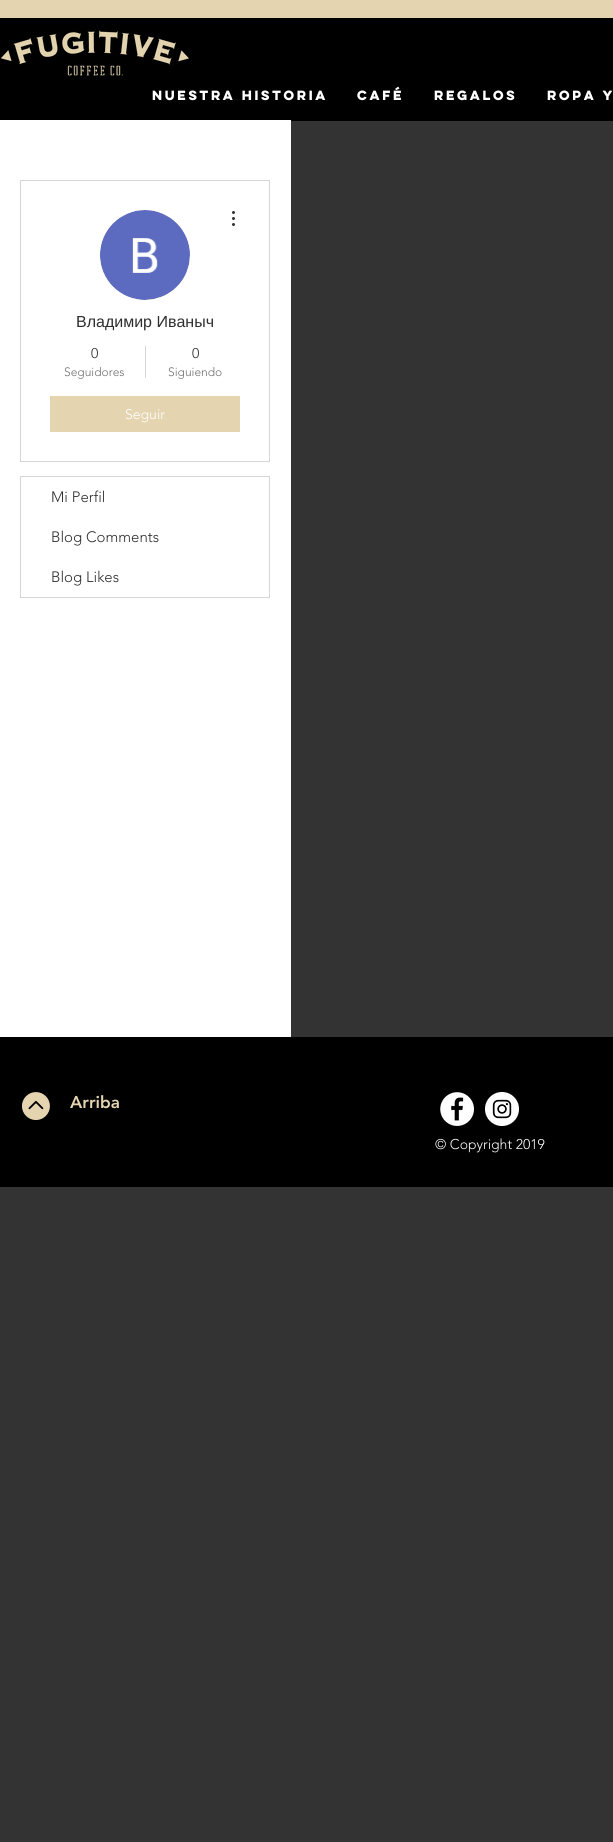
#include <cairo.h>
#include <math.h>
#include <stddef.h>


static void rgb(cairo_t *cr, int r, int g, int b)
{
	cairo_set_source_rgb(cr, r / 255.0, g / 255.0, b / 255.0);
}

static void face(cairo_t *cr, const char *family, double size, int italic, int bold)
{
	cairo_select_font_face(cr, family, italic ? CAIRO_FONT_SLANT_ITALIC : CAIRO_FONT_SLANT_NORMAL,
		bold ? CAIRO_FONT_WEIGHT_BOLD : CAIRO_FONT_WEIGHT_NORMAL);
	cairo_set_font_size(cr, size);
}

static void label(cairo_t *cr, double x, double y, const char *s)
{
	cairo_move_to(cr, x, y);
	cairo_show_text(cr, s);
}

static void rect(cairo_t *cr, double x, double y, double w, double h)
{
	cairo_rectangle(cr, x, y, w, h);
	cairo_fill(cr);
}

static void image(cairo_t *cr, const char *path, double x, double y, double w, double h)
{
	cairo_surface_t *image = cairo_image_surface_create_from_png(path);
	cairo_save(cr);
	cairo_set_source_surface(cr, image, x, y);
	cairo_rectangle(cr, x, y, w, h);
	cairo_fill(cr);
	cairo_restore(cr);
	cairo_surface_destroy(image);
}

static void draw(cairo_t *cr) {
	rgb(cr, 51, 51, 51);
	cairo_paint(cr);
	rgb(cr, 0, 0, 0);
	rect(cr, 0, 18, 613, 103);
	rgb(cr, 229, 212, 176);
	rect(cr, 0, 0, 613, 18);
	image(cr, "image0.png", 1, 30, 188, 46);
	face(cr, "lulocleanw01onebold", 12, 0, 1);
	rgb(cr, 255, 255, 255);
	label(cr, 152, 100, "Nuestra Historia");
	label(cr, 357, 100, "Café");
	label(cr, 434, 100, "Regalos");
	label(cr, 547, 100, "Ropa y");
	rect(cr, 0, 120, 291, 917);
	cairo_rectangle(cr, 20.5, 180.5, 249, 281);
	rgb(cr, 213, 213, 214);
	cairo_set_line_width(cr, 1);
	cairo_stroke(cr);
	rgb(cr, 216, 216, 216);
	cairo_arc(cr, 145, 255, 45, 0, 2 * M_PI);
	cairo_fill(cr);
	image(cr, "image1.png", 100, 210, 90, 90);
	image(cr, "image2.png", 232, 211, 3, 15);
	face(cr, "Liberation Sans", 16, 0, 0);
	rgb(cr, 47, 47, 48);
	label(cr, 76, 327, "Владимир Иваныч");
	face(cr, "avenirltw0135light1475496 Light", 14, 0, 0);
	label(cr, 91, 358, "0");
	face(cr, "avenirltw0135light1475496 Light", 12, 0, 0);
	rgb(cr, 109, 109, 110);
	label(cr, 64, 376, "Seguidores");
	rgb(cr, 213, 213, 214);
	rect(cr, 145, 346, 1, 32);
	face(cr, "avenirltw0135light1475496 Light", 14, 0, 0);
	rgb(cr, 47, 47, 48);
	label(cr, 192, 358, "0");
	face(cr, "avenirltw0135light1475496 Light", 12, 0, 0);
	rgb(cr, 109, 109, 110);
	label(cr, 168, 376, "Siguiendo");
	rgb(cr, 229, 212, 176);
	rect(cr, 50, 396, 190, 36);
	face(cr, "avenirltw0135light1475496 Light", 14, 0, 0);
	rgb(cr, 255, 255, 255);
	label(cr, 125, 419, "Seguir");
	cairo_rectangle(cr, 20.5, 476.5, 249, 121);
	rgb(cr, 213, 213, 214);
	cairo_stroke(cr);
	face(cr, "avenirltw0135light1475496 Light", 15, 0, 0);
	rgb(cr, 47, 47, 48);
	label(cr, 51, 502, "Mi Perfil");
	label(cr, 51, 542, "Blog Comments");
	label(cr, 51, 582, "Blog Likes");
	rgb(cr, 0, 0, 0);
	rect(cr, 0, 1037, 613, 150);
	image(cr, "image3.png", 21, 1092, 29, 29);
	face(cr, "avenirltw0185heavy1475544 Black", 17, 0, 0);
	rgb(cr, 229, 212, 176);
	label(cr, 70, 1108, "Arriba");
	image(cr, "image4.png", 440, 1092, 34, 34);
	image(cr, "image5.png", 485, 1092, 34, 34);
	face(cr, "avenirltw0135light1475496 Light", 14, 0, 0);
	rgb(cr, 255, 255, 255);
	label(cr, 435, 1149, "© Copyright 2019");
}

int main(void) {
	cairo_surface_t *surface = cairo_image_surface_create(CAIRO_FORMAT_RGB24, 613, 1842);
	cairo_t *cr = cairo_create(surface);
	cairo_font_options_t *options = cairo_font_options_create();
	cairo_font_options_set_hint_metrics(options, CAIRO_HINT_METRICS_OFF);
	cairo_font_options_set_hint_style(options, CAIRO_HINT_STYLE_NONE);
	cairo_set_font_options(cr, options);
	cairo_set_miter_limit(cr, 4);
	draw(cr);
	cairo_surface_write_to_png(surface, "render.png");
	cairo_font_options_destroy(options);
	cairo_destroy(cr);
	cairo_surface_destroy(surface);
	return 0;
}
